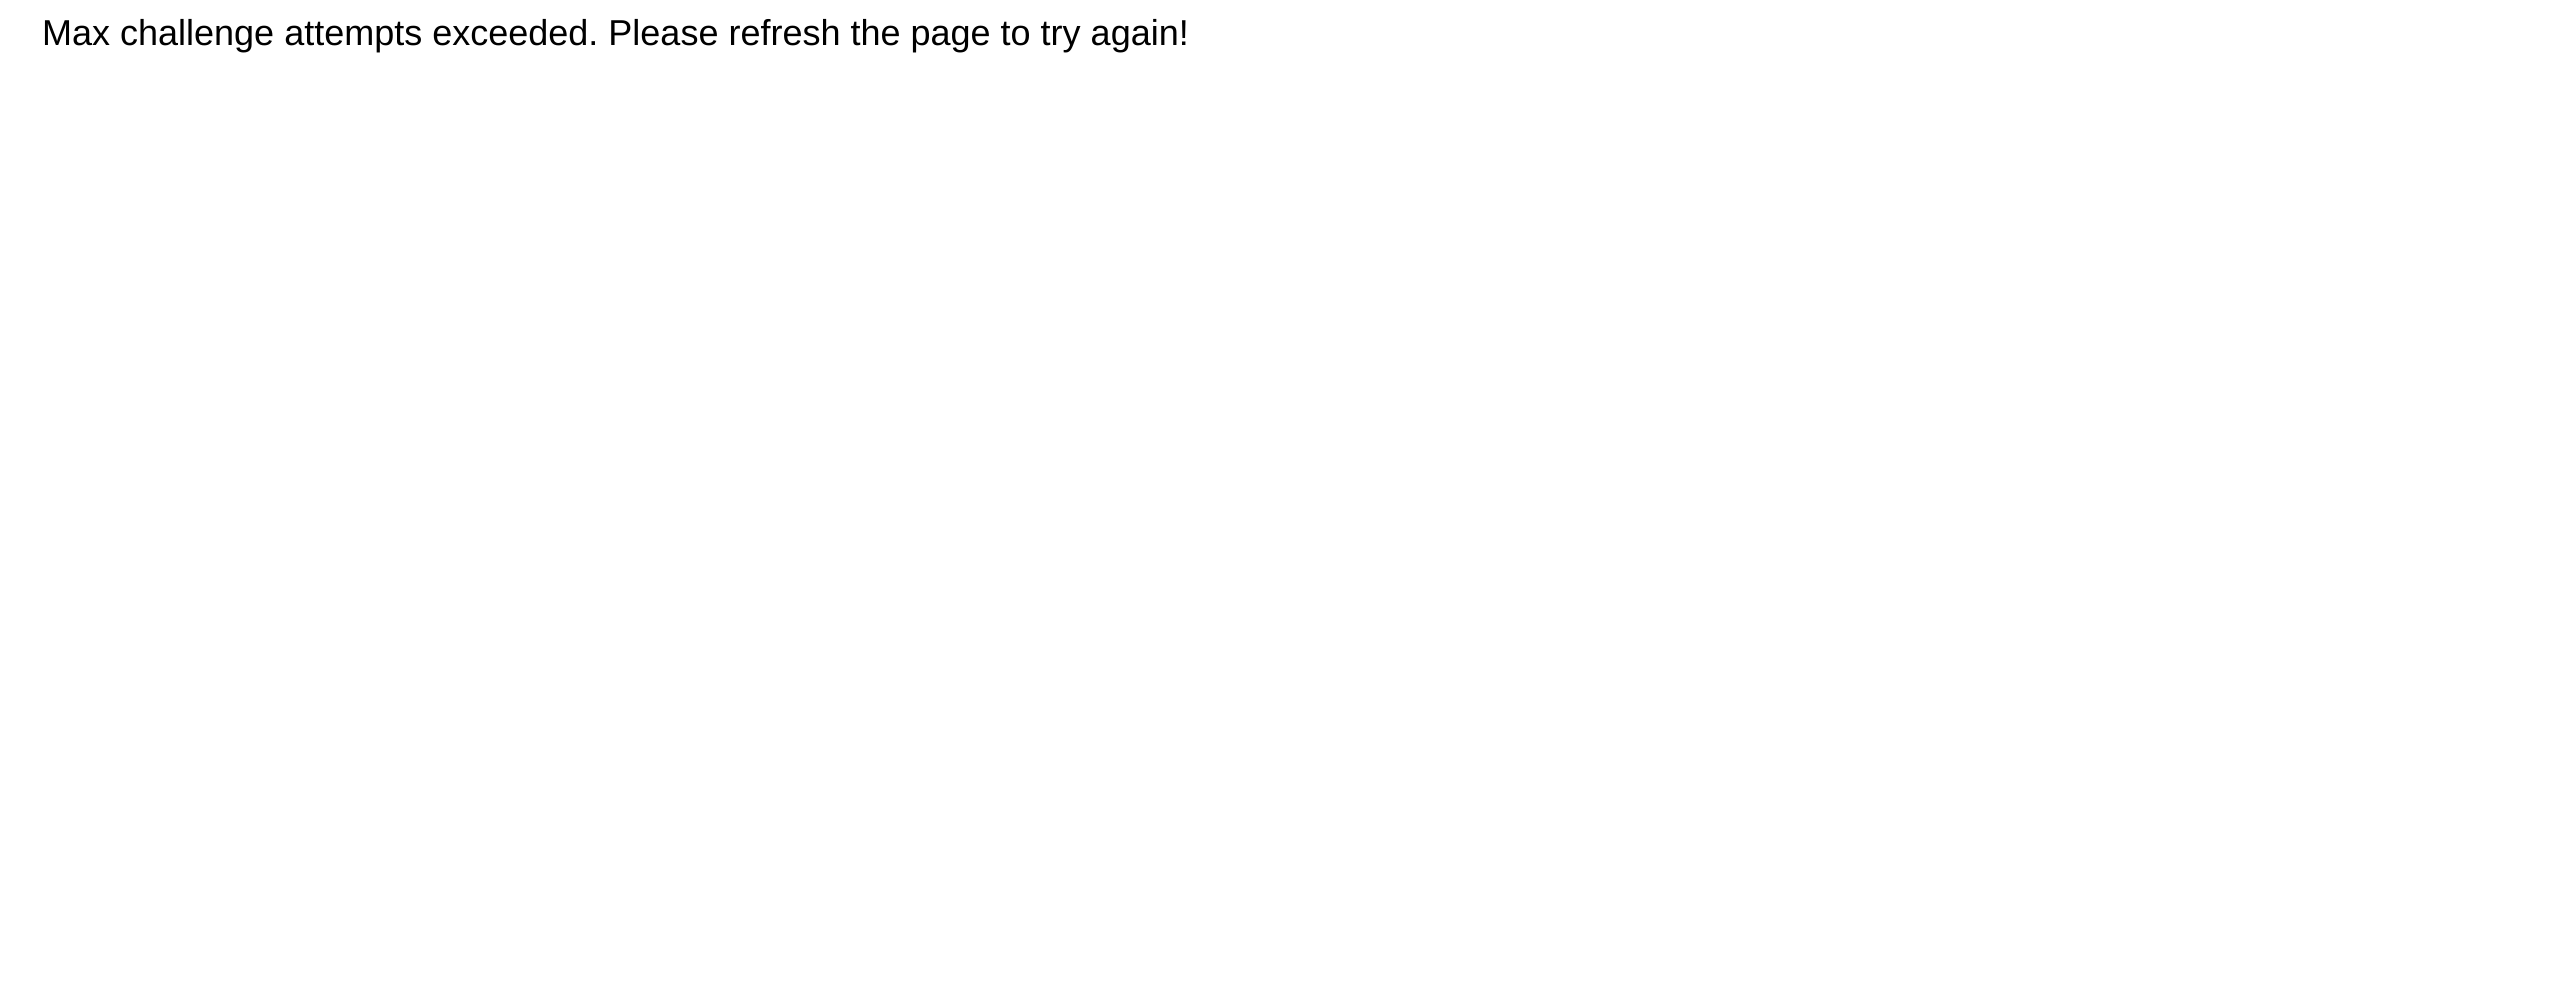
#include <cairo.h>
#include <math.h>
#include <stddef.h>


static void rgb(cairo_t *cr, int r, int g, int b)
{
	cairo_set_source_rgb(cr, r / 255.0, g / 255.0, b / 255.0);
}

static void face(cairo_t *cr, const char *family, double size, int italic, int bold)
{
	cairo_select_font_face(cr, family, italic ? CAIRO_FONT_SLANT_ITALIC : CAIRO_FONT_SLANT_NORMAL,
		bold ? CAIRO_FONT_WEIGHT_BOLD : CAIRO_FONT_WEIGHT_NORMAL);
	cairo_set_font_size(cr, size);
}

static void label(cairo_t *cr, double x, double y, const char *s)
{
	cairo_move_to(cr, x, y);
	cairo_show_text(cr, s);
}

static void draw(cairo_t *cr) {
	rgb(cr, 255, 255, 255);
	cairo_paint(cr);
	face(cr, "Liberation Sans", 36, 0, 0);
	rgb(cr, 0, 0, 0);
	label(cr, 42, 45, "Max challenge attempts exceeded. Please refresh the page to try again!");
}

int main(void) {
	cairo_surface_t *surface = cairo_image_surface_create(CAIRO_FORMAT_RGB24, 2562, 994);
	cairo_t *cr = cairo_create(surface);
	cairo_font_options_t *options = cairo_font_options_create();
	cairo_font_options_set_hint_metrics(options, CAIRO_HINT_METRICS_OFF);
	cairo_font_options_set_hint_style(options, CAIRO_HINT_STYLE_NONE);
	cairo_set_font_options(cr, options);
	cairo_set_miter_limit(cr, 4);
	draw(cr);
	cairo_surface_write_to_png(surface, "render.png");
	cairo_font_options_destroy(options);
	cairo_destroy(cr);
	cairo_surface_destroy(surface);
	return 0;
}
